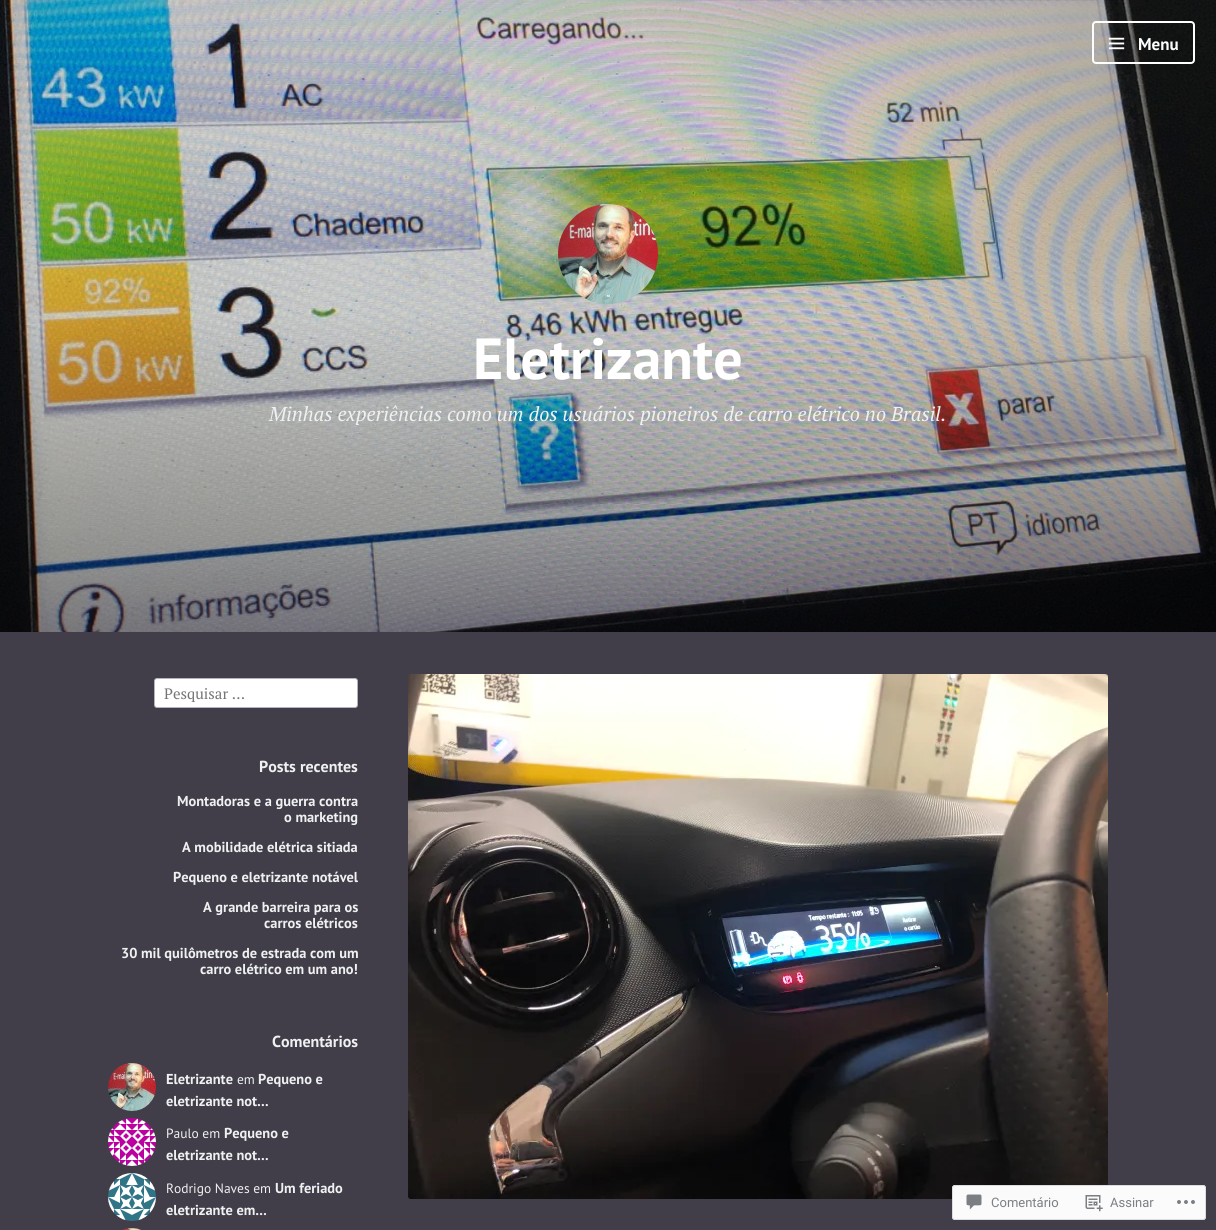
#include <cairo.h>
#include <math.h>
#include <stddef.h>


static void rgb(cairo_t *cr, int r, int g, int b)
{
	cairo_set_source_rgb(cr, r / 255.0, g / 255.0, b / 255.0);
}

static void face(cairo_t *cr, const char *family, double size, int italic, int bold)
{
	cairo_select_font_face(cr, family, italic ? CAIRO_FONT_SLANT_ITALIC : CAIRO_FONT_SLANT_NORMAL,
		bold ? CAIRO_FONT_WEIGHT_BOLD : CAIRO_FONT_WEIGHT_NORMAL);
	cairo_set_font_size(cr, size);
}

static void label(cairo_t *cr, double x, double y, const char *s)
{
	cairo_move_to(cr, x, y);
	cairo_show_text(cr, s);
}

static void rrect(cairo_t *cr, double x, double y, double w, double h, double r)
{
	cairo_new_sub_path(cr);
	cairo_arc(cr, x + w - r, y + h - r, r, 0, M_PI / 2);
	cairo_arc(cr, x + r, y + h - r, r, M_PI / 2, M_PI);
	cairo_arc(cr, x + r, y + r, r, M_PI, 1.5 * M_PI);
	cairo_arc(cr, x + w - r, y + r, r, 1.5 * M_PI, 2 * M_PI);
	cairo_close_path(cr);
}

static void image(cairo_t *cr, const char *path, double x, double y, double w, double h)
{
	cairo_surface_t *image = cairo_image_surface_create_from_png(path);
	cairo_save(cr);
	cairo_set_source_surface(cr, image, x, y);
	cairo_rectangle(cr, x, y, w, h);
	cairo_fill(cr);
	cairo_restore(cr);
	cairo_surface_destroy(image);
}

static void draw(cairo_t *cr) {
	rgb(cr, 65, 62, 74);
	cairo_paint(cr);
	image(cr, "image0.png", 0, 0, 1216, 632);
	rrect(cr, 1093, 22, 101, 41, 3);
	rgb(cr, 255, 255, 255);
	cairo_stroke(cr);
	image(cr, "image1.png", 1108, 37, 17, 13);
	face(cr, "PT Sans", 17, 0, 1);
	label(cr, 1138, 50, "Menu");
	image(cr, "image2.png", 558, 204, 100, 100);
	face(cr, "PT Sans", 58, 0, 1);
	label(cr, 473, 379, "Eletrizante");
	face(cr, "PT Serif", 20, 1, 0);
	rgb(cr, 239, 241, 241);
	label(cr, 269, 421, "Minhas experiências como um dos usuários pioneiros de carro elétrico no Brasil.");
	rgb(cr, 255, 255, 255);
	rrect(cr, 154.5, 678.5, 203, 29, 2.5);
	cairo_fill_preserve(cr);
	rgb(cr, 182, 179, 192);
	cairo_set_line_width(cr, 1);
	cairo_stroke(cr);
	face(cr, "PT Serif", 15, 0, 0);
	rgb(cr, 117, 117, 117);
	label(cr, 164, 699, "Pesquisar …");
	face(cr, "PT Sans", 16, 0, 1);
	rgb(cr, 239, 241, 241);
	label(cr, 259, 772, "Posts recentes");
	face(cr, "PT Sans", 14.4, 0, 1);
	label(cr, 177, 806, "Montadoras e a guerra contra");
	label(cr, 284, 822, "o marketing");
	label(cr, 182, 852, "A mobilidade elétrica sitiada");
	label(cr, 173, 882, "Pequeno e eletrizante notável");
	label(cr, 203, 912, "A grande barreira para os");
	label(cr, 264, 928, "carros elétricos");
	label(cr, 121, 958, "30 mil quilômetros de estrada com um");
	label(cr, 200, 974, "carro elétrico em um ano!");
	face(cr, "PT Sans", 16, 0, 1);
	label(cr, 272, 1047, "Comentários");
	image(cr, "image3.png", 108, 1063, 48, 48);
	face(cr, "PT Sans", 14.4, 0, 1);
	label(cr, 166, 1084, "Eletrizante");
	face(cr, "PT Sans", 13.5, 0, 0);
	label(cr, 237, 1084, "em");
	face(cr, "PT Sans", 14.4, 0, 1);
	label(cr, 258, 1084, "Pequeno e");
	label(cr, 166, 1106, "eletrizante not…");
	image(cr, "image4.png", 108, 1118, 48, 48);
	face(cr, "PT Sans", 13.5, 0, 0);
	label(cr, 166, 1138, "Paulo em");
	face(cr, "PT Sans", 14.4, 0, 1);
	label(cr, 224, 1138, "Pequeno e");
	label(cr, 166, 1160, "eletrizante not…");
	image(cr, "image5.png", 108, 1173, 48, 48);
	face(cr, "PT Sans", 13.5, 0, 0);
	label(cr, 166, 1193, "Rodrigo Naves em");
	face(cr, "PT Sans", 14.4, 0, 1);
	label(cr, 275, 1193, "Um feriado");
	label(cr, 166, 1215, "eletrizante em…");
	image(cr, "image6.png", 122, 1228, 20, 2);
	image(cr, "image7.png", 408, 674, 700, 525);
	cairo_set_source_rgba(cr, 1, 1, 1, 0.98);
	rrect(cr, 952, 1185, 254, 35, 3);
	cairo_fill(cr);
	rrect(cr, 952.5, 1185.5, 253, 34, 2.5);
	cairo_set_source_rgba(cr, 0.863, 0.863, 0.871, 0.98);
	cairo_stroke(cr);
	image(cr, "image8.png", 966, 1194, 16, 16);
	face(cr, "Roboto", 13, 0, 0);
	rgb(cr, 123, 127, 132);
	label(cr, 991, 1207, "Comentário");
	image(cr, "image9.png", 1085, 1195, 18, 17);
	label(cr, 1110, 1207, "Assinar");
	image(cr, "image10.png", 1177, 1200, 18, 4);
}

int main(void) {
	cairo_surface_t *surface = cairo_image_surface_create(CAIRO_FORMAT_RGB24, 1216, 1230);
	cairo_t *cr = cairo_create(surface);
	cairo_font_options_t *options = cairo_font_options_create();
	cairo_font_options_set_hint_metrics(options, CAIRO_HINT_METRICS_OFF);
	cairo_font_options_set_hint_style(options, CAIRO_HINT_STYLE_NONE);
	cairo_set_font_options(cr, options);
	cairo_set_miter_limit(cr, 4);
	draw(cr);
	cairo_surface_write_to_png(surface, "render.png");
	cairo_font_options_destroy(options);
	cairo_destroy(cr);
	cairo_surface_destroy(surface);
	return 0;
}
